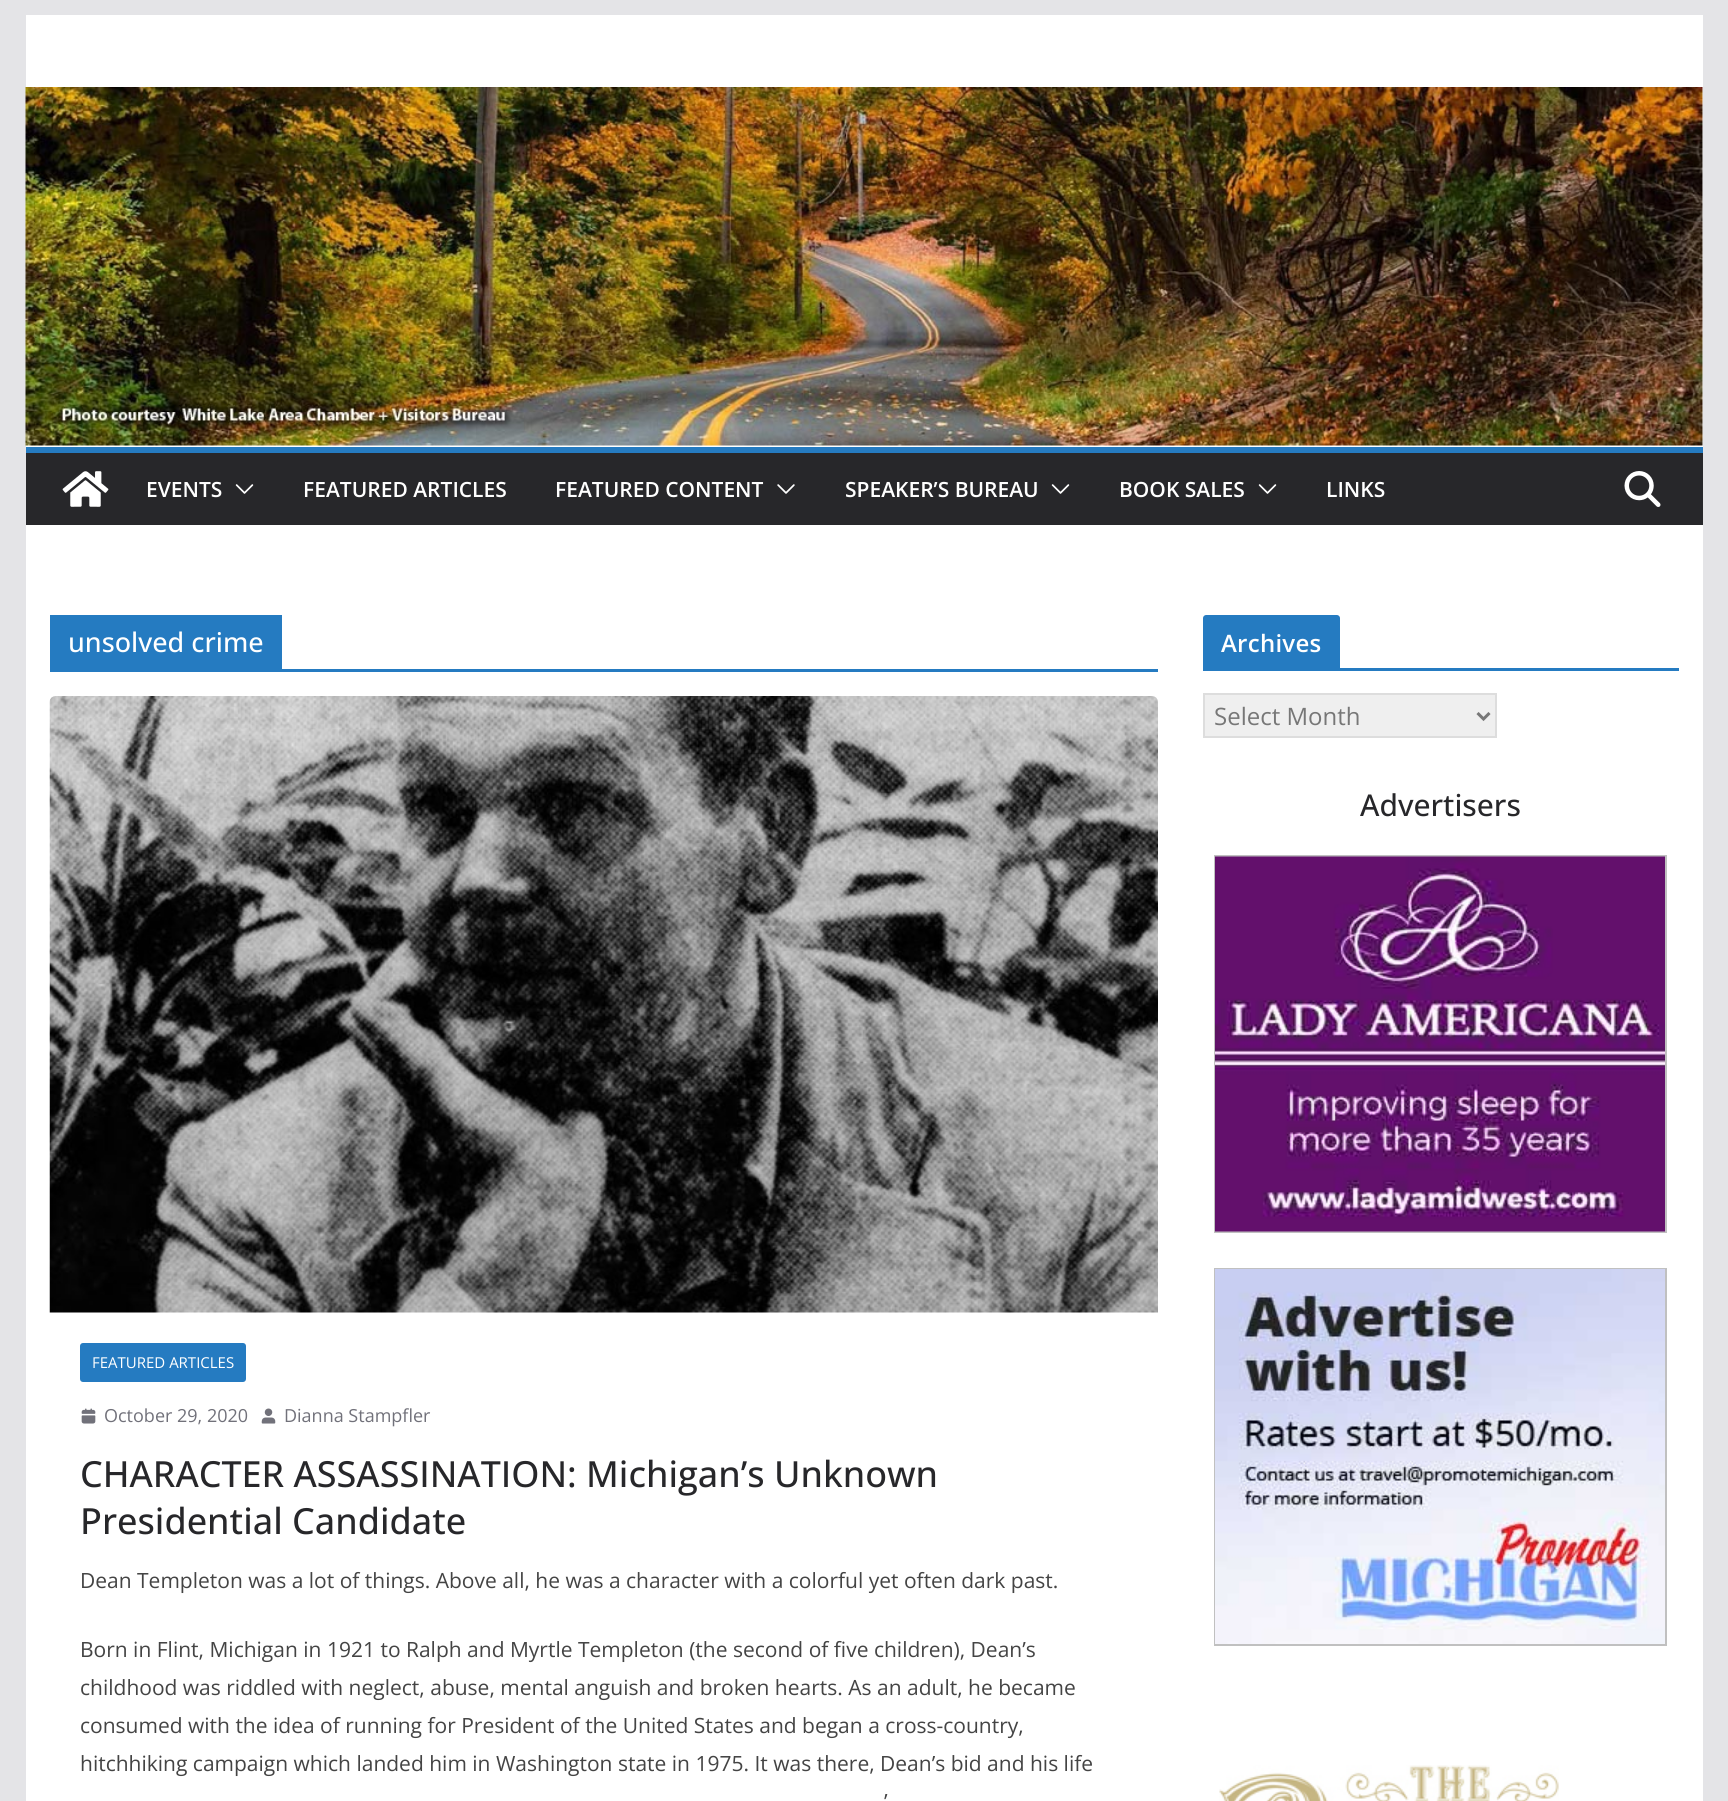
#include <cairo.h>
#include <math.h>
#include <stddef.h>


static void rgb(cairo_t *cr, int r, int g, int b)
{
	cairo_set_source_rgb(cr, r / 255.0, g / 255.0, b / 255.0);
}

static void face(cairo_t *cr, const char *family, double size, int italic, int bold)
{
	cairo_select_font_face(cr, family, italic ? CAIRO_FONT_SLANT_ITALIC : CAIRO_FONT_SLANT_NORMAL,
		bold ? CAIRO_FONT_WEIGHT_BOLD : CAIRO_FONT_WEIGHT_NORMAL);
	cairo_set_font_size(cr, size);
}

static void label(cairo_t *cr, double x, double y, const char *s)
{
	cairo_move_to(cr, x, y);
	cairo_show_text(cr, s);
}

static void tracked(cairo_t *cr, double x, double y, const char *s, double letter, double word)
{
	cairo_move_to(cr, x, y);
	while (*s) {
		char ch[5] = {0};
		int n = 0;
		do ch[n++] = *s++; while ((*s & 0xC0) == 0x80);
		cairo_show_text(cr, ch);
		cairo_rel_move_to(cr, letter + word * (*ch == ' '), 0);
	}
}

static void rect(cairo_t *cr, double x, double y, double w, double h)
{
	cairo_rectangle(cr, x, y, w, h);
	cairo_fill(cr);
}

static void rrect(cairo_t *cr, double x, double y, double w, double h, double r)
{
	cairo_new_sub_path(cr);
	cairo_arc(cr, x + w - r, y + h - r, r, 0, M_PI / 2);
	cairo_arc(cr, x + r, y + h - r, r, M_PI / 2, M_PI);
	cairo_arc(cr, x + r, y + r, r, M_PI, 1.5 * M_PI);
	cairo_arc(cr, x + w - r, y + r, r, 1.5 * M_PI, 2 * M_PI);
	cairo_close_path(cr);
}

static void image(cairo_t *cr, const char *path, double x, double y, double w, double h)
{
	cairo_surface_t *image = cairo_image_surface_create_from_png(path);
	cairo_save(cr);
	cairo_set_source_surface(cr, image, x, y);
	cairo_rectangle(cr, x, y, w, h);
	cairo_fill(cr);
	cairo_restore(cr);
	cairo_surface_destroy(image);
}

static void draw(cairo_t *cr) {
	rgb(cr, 228, 228, 231);
	cairo_paint(cr);
	rgb(cr, 255, 255, 255);
	rect(cr, 26, 15, 1677, 432);
	image(cr, "image0.png", 25, 87, 1678, 359);
	rgb(cr, 39, 39, 42);
	rect(cr, 26, 453, 1677, 72);
	rgb(cr, 37, 123, 193);
	rect(cr, 26, 447, 1677, 6);
	image(cr, "image1.png", 62, 471, 47, 36);
	face(cr, "Open Sans SemiBold", 21, 0, 0);
	rgb(cr, 255, 255, 255);
	label(cr, 146, 497, "EVENTS");
	image(cr, "image2.png", 235, 484, 19, 10);
	label(cr, 303, 497, "FEATURED ARTICLES");
	label(cr, 555, 497, "FEATURED CONTENT");
	image(cr, "image3.png", 777, 484, 18, 10);
	label(cr, 845, 497, "SPEAKER’S BUREAU");
	image(cr, "image2.png", 1051, 484, 19, 10);
	label(cr, 1119, 497, "BOOK SALES");
	image(cr, "image2.png", 1258, 484, 19, 10);
	label(cr, 1326, 497, "LINKS");
	image(cr, "image4.png", 1624, 471, 37, 36);
	rect(cr, 26, 525, 1677, 1276);
	rgb(cr, 37, 123, 193);
	rect(cr, 50, 669, 1108, 3);
	rect(cr, 50, 615, 232, 54);
	face(cr, "Open Sans Medium", 27, 0, 0);
	rgb(cr, 255, 255, 255);
	label(cr, 68, 652, "unsolved crime");
	image(cr, "image5.png", 49, 696, 1109, 617);
	rgb(cr, 37, 123, 193);
	rrect(cr, 80, 1343, 166, 39, 3);
	cairo_fill(cr);
	face(cr, "Open Sans", 15, 0, 0);
	rgb(cr, 255, 255, 255);
	label(cr, 92, 1368, "FEATURED ARTICLES");
	image(cr, "image6.png", 81, 1408, 15, 16);
	face(cr, "Open Sans", 18, 0, 0);
	rgb(cr, 113, 113, 122);
	label(cr, 104, 1422, "October 29, 2020");
	image(cr, "image7.png", 261, 1408, 15, 16);
	label(cr, 284, 1422, "Dianna Stampfler");
	face(cr, "Open Sans Medium", 36, 0, 0);
	rgb(cr, 39, 39, 42);
	label(cr, 80, 1487, "CHARACTER ASSASSINATION: Michigan’s Unknown");
	label(cr, 80, 1534, "Presidential Candidate");
	face(cr, "Open Sans", 21, 0, 0);
	rgb(cr, 68, 68, 68);
	label(cr, 80, 1588, "Dean Templeton was a lot of things. Above all, he was a character with a colorful yet often dark past.");
	label(cr, 80, 1657, "Born in Flint, Michigan in 1921 to Ralph and Myrtle Templeton (the second of five children), Dean’s");
	label(cr, 80, 1695, "childhood was riddled with neglect, abuse, mental anguish and broken hearts. As an adult, he became");
	label(cr, 80, 1733, "consumed with the idea of running for President of the United States and began a cross-country,");
	label(cr, 80, 1771, "hitchhiking campaign which landed him in Washington state in 1975. It was there, Dean’s bid and his life");
	label(cr, 884, 1809, "’");
	rgb(cr, 37, 123, 193);
	rect(cr, 1203, 668, 476, 3);
	cairo_new_path(cr);
	cairo_move_to(cr, 1206, 615);
	cairo_line_to(cr, 1337, 615);
	cairo_curve_to(cr, 1338.5, 615, 1340, 616.5, 1340, 618);
	cairo_line_to(cr, 1340, 668);
	cairo_line_to(cr, 1203, 668);
	cairo_line_to(cr, 1203, 618);
	cairo_curve_to(cr, 1203, 616.5, 1204.5, 615, 1206, 615);
	cairo_close_path(cr);
	cairo_fill(cr);
	face(cr, "Open Sans SemiBold", 24, 0, 0);
	rgb(cr, 255, 255, 255);
	tracked(cr, 1221, 652, "Archives", 0.25, 0);
	rgb(cr, 239, 239, 239);
	cairo_rectangle(cr, 1204, 694, 292, 43);
	cairo_fill_preserve(cr);
	rgb(cr, 221, 221, 221);
	cairo_stroke(cr);
	cairo_new_path(cr);
	cairo_move_to(cr, 1477.5, 713);
	cairo_line_to(cr, 1483.5, 719);
	cairo_line_to(cr, 1489.5, 713);
	rgb(cr, 119, 119, 119);
	cairo_set_line_width(cr, 3);
	cairo_stroke(cr);
	face(cr, "Open Sans", 24, 0, 0);
	label(cr, 1214, 725, "Select Month");
	face(cr, "Open Sans Medium", 30, 0, 0);
	rgb(cr, 39, 39, 42);
	label(cr, 1360, 816, "Advertisers");
	cairo_rectangle(cr, 1215, 856, 451, 376);
	rgb(cr, 192, 192, 192);
	cairo_set_line_width(cr, 2);
	cairo_stroke(cr);
	image(cr, "image8.png", 1215, 856, 450, 376);
	cairo_rectangle(cr, 1215, 1269, 451, 376);
	cairo_stroke(cr);
	image(cr, "image9.png", 1215, 1269, 450, 375);
	image(cr, "image10.png", 1219, 1765, 340, 36);
}

int main(void) {
	cairo_surface_t *surface = cairo_image_surface_create(CAIRO_FORMAT_RGB24, 1728, 1801);
	cairo_t *cr = cairo_create(surface);
	cairo_font_options_t *options = cairo_font_options_create();
	cairo_font_options_set_hint_metrics(options, CAIRO_HINT_METRICS_OFF);
	cairo_font_options_set_hint_style(options, CAIRO_HINT_STYLE_NONE);
	cairo_set_font_options(cr, options);
	cairo_set_miter_limit(cr, 4);
	draw(cr);
	cairo_surface_write_to_png(surface, "render.png");
	cairo_font_options_destroy(options);
	cairo_destroy(cr);
	cairo_surface_destroy(surface);
	return 0;
}
